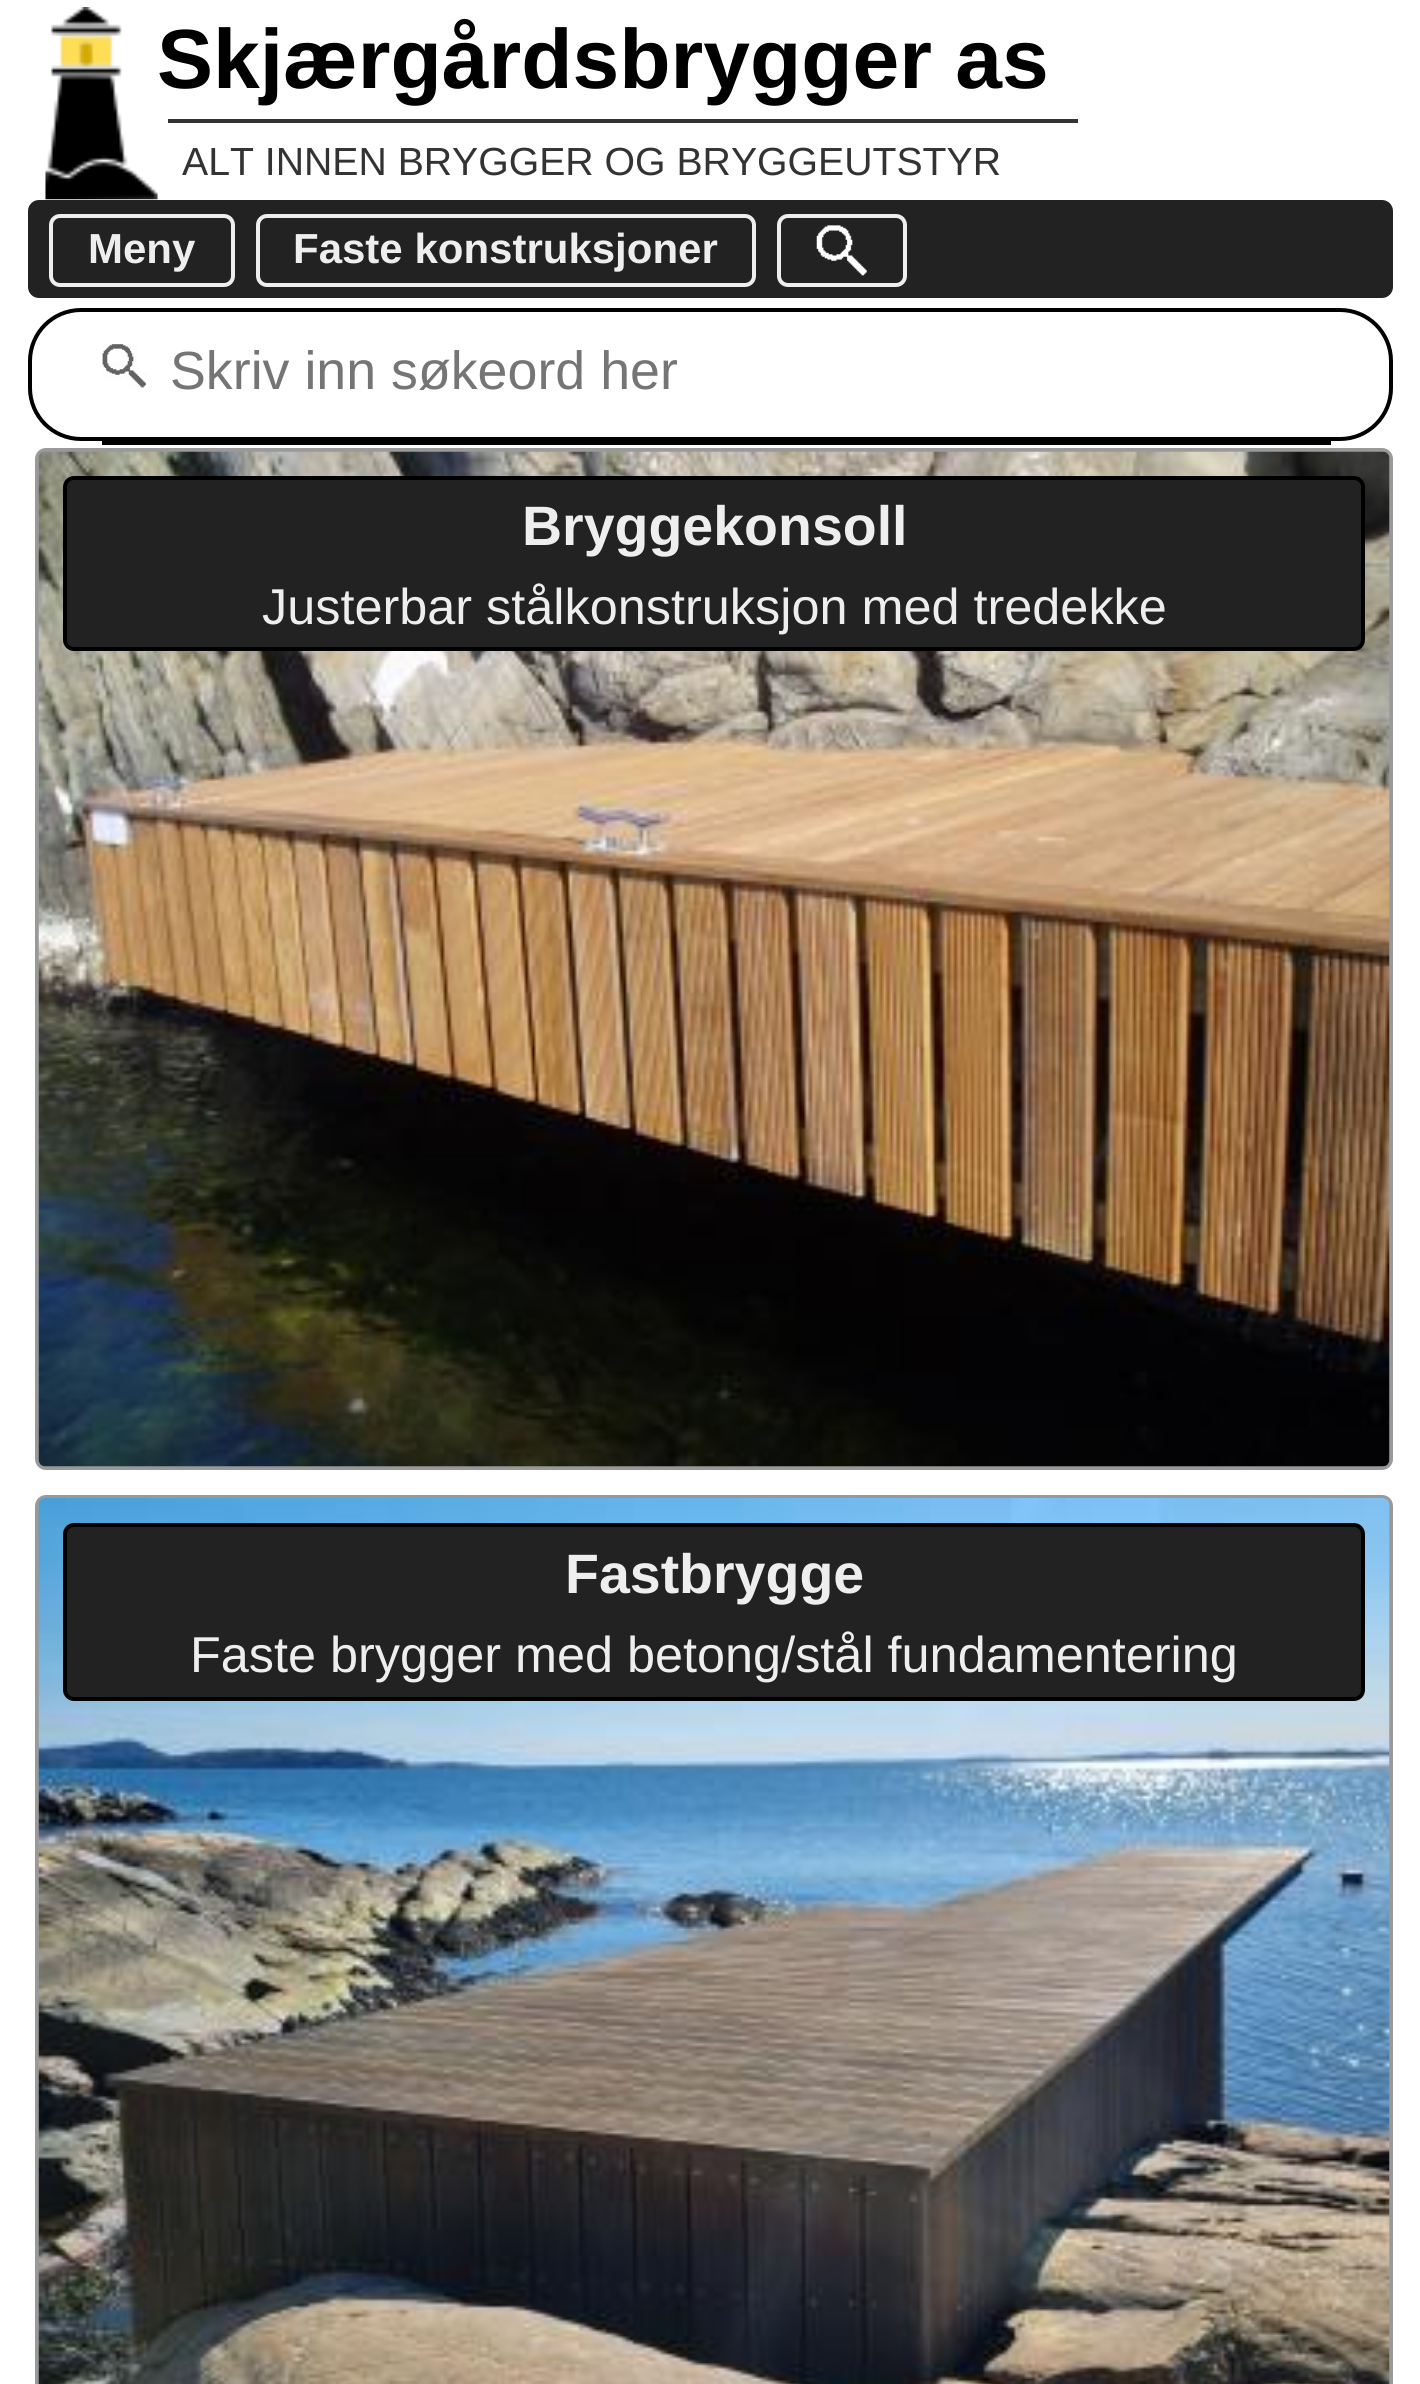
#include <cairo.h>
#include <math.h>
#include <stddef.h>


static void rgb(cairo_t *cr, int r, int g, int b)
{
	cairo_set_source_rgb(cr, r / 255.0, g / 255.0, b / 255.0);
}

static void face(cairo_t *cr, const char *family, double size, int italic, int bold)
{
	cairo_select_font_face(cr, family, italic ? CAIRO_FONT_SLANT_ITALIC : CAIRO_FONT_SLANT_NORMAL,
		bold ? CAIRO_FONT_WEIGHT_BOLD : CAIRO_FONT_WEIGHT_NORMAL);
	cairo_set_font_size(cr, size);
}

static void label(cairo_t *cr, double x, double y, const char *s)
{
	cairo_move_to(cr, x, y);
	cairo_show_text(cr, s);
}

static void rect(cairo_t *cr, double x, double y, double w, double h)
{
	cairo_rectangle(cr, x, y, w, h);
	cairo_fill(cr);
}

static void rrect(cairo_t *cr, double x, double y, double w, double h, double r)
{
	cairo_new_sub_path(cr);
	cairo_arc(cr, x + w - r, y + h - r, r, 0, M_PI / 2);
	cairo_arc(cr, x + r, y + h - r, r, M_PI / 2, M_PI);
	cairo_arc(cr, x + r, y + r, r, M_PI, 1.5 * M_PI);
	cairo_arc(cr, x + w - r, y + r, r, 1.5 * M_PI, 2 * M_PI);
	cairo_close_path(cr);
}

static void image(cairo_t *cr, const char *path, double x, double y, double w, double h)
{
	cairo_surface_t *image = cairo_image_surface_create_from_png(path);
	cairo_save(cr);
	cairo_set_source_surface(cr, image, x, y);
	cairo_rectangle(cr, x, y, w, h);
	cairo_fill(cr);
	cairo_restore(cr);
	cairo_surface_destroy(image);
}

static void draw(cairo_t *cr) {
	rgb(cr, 255, 255, 255);
	cairo_paint(cr);
	image(cr, "image0.png", 45, 7, 113, 193);
	face(cr, "Liberation Sans", 84, 0, 1);
	rgb(cr, 0, 0, 0);
	label(cr, 157, 88, "Skjærgårdsbrygger as");
	rgb(cr, 51, 51, 51);
	rect(cr, 168, 119, 910, 4);
	face(cr, "Liberation Sans", 39.2, 0, 0);
	label(cr, 182, 175, "ALT INNEN BRYGGER OG BRYGGEUTSTYR");
	rgb(cr, 34, 34, 34);
	rrect(cr, 28, 200, 1365, 98, 11);
	cairo_fill(cr);
	rrect(cr, 51, 216, 182, 69, 9);
	rgb(cr, 238, 238, 238);
	cairo_set_line_width(cr, 4);
	cairo_stroke(cr);
	face(cr, "Liberation Sans", 42, 0, 1);
	label(cr, 88, 263, "Meny");
	rrect(cr, 258, 216, 496, 69, 9);
	cairo_stroke(cr);
	label(cr, 293, 263, "Faste konstruksjoner");
	rrect(cr, 779, 216, 126, 69, 9);
	cairo_stroke(cr);
	image(cr, "image1.png", 816, 225, 51, 51);
	rrect(cr, 30, 310, 1361, 129, 51);
	rgb(cr, 0, 0, 0);
	cairo_stroke(cr);
	image(cr, "image2.png", 102, 344, 45, 44);
	face(cr, "Liberation Sans", 53.75, 0, 0);
	rgb(cr, 117, 117, 117);
	label(cr, 170, 389, "Skriv inn søkeord her");
	rgb(cr, 0, 0, 0);
	rect(cr, 102, 441, 1229, 4);
	rrect(cr, 37, 450, 1354, 1018, 9);
	rgb(cr, 153, 153, 153);
	cairo_stroke(cr);
	image(cr, "image3.png", 38, 451, 1352, 1016);
	rgb(cr, 34, 34, 34);
	rrect(cr, 65, 478, 1298, 171, 9);
	cairo_fill_preserve(cr);
	rgb(cr, 0, 0, 0);
	cairo_stroke(cr);
	face(cr, "Liberation Sans", 55.5, 0, 1);
	rgb(cr, 238, 238, 238);
	label(cr, 522, 545, "Bryggekonsoll");
	face(cr, "Liberation Sans", 50.4, 0, 0);
	label(cr, 262, 624, "Justerbar stålkonstruksjon med tredekke");
	rrect(cr, 37, 1497, 1354, 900, 9);
	rgb(cr, 153, 153, 153);
	cairo_stroke(cr);
	image(cr, "image4.png", 38, 1498, 1352, 886);
	rgb(cr, 34, 34, 34);
	rrect(cr, 65, 1525, 1298, 174, 9);
	cairo_fill_preserve(cr);
	rgb(cr, 0, 0, 0);
	cairo_stroke(cr);
	face(cr, "Liberation Sans", 55.5, 0, 1);
	rgb(cr, 238, 238, 238);
	label(cr, 565, 1593, "Fastbrygge");
	face(cr, "Liberation Sans", 50.4, 0, 0);
	label(cr, 190, 1672, "Faste brygger med betong/stål fundamentering");
}

int main(void) {
	cairo_surface_t *surface = cairo_image_surface_create(CAIRO_FORMAT_RGB24, 1420, 2384);
	cairo_t *cr = cairo_create(surface);
	cairo_font_options_t *options = cairo_font_options_create();
	cairo_font_options_set_hint_metrics(options, CAIRO_HINT_METRICS_OFF);
	cairo_font_options_set_hint_style(options, CAIRO_HINT_STYLE_NONE);
	cairo_set_font_options(cr, options);
	cairo_set_miter_limit(cr, 4);
	draw(cr);
	cairo_surface_write_to_png(surface, "render.png");
	cairo_font_options_destroy(options);
	cairo_destroy(cr);
	cairo_surface_destroy(surface);
	return 0;
}
